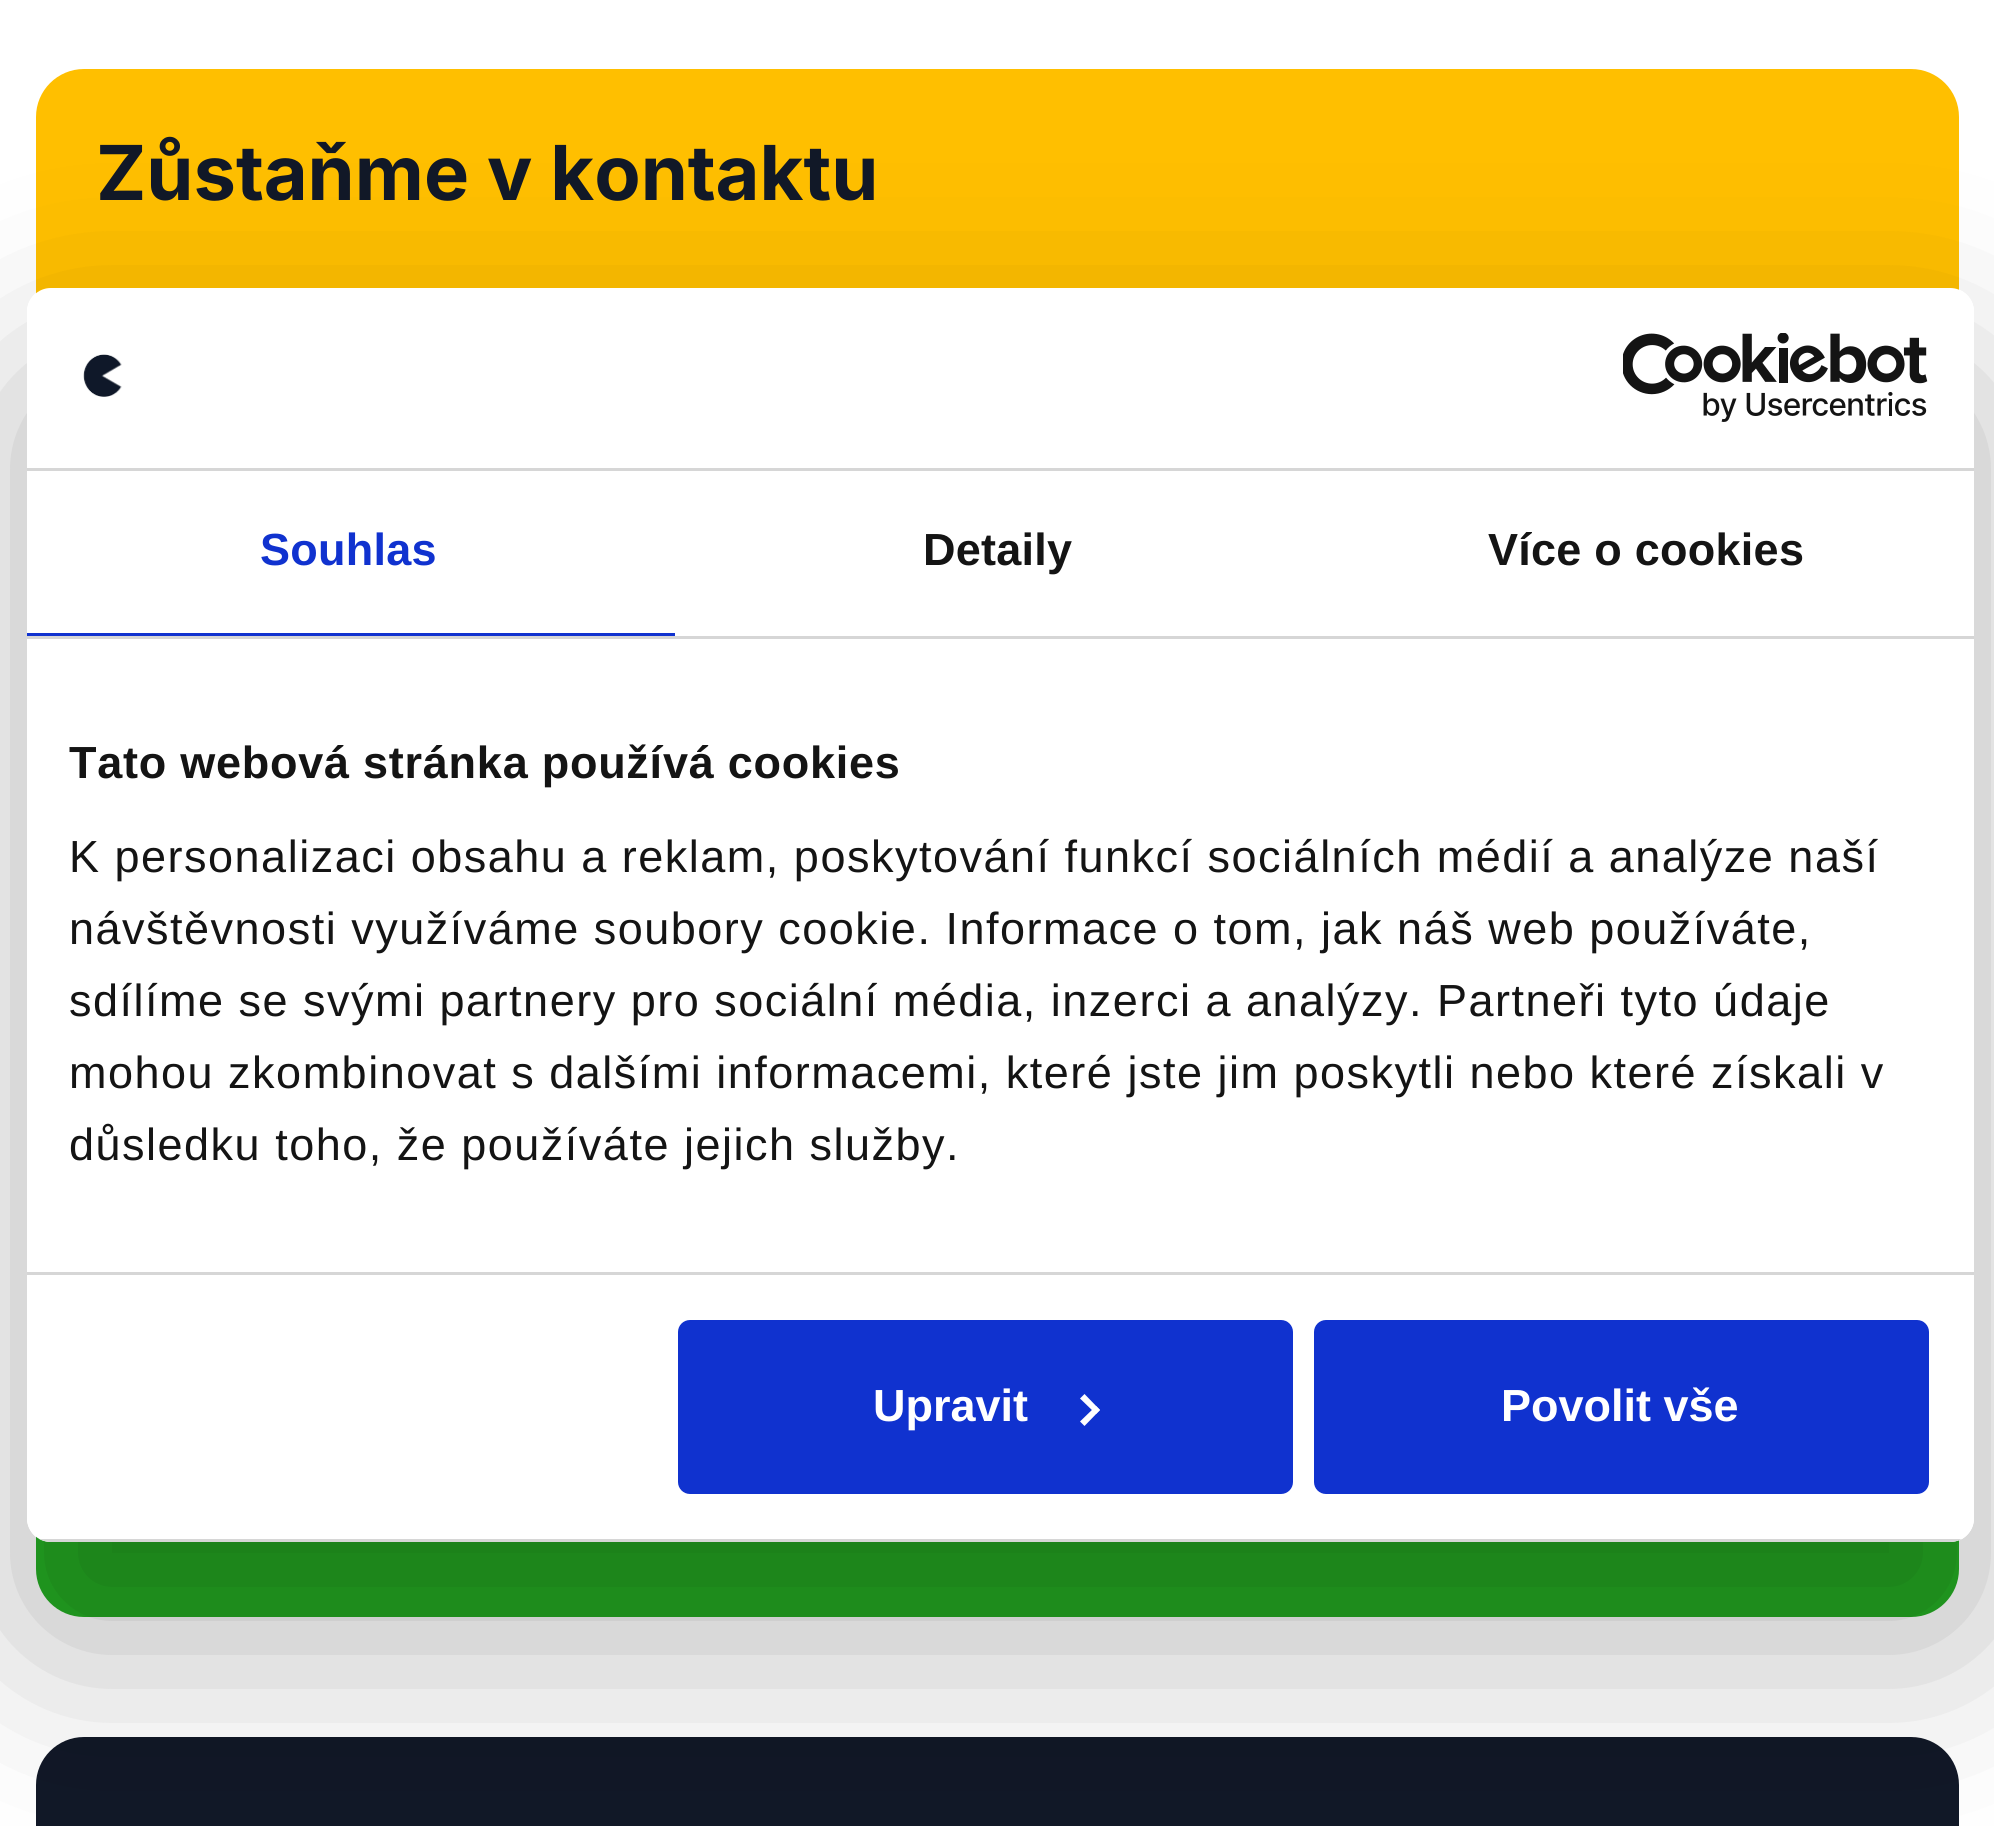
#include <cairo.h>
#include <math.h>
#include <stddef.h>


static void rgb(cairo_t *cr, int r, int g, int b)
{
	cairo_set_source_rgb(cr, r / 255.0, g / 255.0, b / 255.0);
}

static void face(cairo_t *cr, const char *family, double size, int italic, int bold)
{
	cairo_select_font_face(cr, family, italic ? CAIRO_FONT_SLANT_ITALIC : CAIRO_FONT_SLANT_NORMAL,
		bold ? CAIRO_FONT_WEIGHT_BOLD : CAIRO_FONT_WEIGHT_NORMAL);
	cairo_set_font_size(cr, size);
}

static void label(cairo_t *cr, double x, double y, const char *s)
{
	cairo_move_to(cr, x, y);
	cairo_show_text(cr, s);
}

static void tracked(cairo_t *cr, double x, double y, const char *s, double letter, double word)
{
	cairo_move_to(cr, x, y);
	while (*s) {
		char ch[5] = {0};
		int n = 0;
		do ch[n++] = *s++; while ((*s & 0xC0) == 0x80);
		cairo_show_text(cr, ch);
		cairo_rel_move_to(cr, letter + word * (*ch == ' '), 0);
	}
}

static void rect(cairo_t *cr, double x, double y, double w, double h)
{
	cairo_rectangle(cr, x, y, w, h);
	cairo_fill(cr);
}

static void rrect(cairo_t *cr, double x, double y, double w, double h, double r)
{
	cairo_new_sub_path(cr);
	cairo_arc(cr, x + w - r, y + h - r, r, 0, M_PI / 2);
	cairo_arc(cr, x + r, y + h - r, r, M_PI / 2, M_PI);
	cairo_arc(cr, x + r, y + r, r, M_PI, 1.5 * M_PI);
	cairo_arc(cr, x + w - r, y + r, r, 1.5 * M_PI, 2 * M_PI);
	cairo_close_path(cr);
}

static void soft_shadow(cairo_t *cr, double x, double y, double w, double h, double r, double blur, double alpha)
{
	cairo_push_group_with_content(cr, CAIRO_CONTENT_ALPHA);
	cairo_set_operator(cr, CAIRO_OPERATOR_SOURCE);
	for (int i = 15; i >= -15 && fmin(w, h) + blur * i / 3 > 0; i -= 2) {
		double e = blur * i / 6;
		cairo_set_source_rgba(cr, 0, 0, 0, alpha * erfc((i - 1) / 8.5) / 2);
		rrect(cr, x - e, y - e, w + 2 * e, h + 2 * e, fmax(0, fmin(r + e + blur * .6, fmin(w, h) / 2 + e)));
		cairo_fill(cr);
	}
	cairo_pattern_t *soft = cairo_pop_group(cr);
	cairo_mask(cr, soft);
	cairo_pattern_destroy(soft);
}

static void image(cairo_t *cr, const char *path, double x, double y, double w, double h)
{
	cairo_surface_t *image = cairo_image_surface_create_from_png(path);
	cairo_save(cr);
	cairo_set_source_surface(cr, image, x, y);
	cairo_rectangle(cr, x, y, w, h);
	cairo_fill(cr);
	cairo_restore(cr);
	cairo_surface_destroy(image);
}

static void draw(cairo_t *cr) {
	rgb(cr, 255, 255, 255);
	cairo_paint(cr);
	rgb(cr, 255, 191, 0);
	rrect(cr, 36, 69, 1923, 846, 48);
	cairo_fill(cr);
	face(cr, "Inter", 75.75, 0, 1);
	rgb(cr, 17, 24, 39);
	label(cr, 96, 200, "Zůstaňme v kontaktu");
	rgb(cr, 37, 173, 35);
	rrect(cr, 36, 975, 1923, 642, 48);
	cairo_fill(cr);
	rgb(cr, 17, 24, 39);
	rrect(cr, 36, 1737, 1923, 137, 48);
	cairo_fill(cr);
	cairo_save(cr);
	cairo_set_fill_rule(cr, CAIRO_FILL_RULE_EVEN_ODD);
	cairo_new_path(cr);
	cairo_move_to(cr, 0, 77);
	cairo_line_to(cr, 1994, 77);
	cairo_line_to(cr, 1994, 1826);
	cairo_line_to(cr, 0, 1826);
	cairo_close_path(cr);
	cairo_move_to(cr, 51, 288);
	cairo_line_to(cr, 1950, 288);
	cairo_curve_to(cr, 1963.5, 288, 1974, 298.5, 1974, 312);
	cairo_line_to(cr, 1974, 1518);
	cairo_curve_to(cr, 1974, 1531.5, 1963.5, 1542, 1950, 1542);
	cairo_line_to(cr, 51, 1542);
	cairo_curve_to(cr, 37.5, 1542, 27, 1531.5, 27, 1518);
	cairo_line_to(cr, 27, 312);
	cairo_curve_to(cr, 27, 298.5, 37.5, 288, 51, 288);
	cairo_close_path(cr);
	cairo_clip(cr);
	rgb(cr, 0, 0, 0);
	soft_shadow(cr, 27, 384, 1947, 1254, 24, 102, 0.3);
	cairo_restore(cr);
	rgb(cr, 255, 255, 255);
	rrect(cr, 27, 288, 1947, 1254, 24);
	cairo_fill(cr);
	rgb(cr, 214, 214, 214);
	rect(cr, 27, 468, 1947, 3);
	image(cr, "image0.png", 83, 354, 39, 43);
	image(cr, "image1.png", 1623, 333, 305, 89);
	rect(cr, 27, 636, 1947, 3);
	rgb(cr, 16, 50, 207);
	rect(cr, 27, 633, 648, 3);
	face(cr, "Liberation Sans", 45, 0, 1);
	tracked(cr, 260, 565, "Souhlas", 0.25, 0);
	rgb(cr, 20, 20, 20);
	tracked(cr, 923, 565, "Detaily", 0.25, 0);
	tracked(cr, 1488, 565, "Více o cookies", 0.25, 0);
	rgb(cr, 214, 214, 214);
	rect(cr, 27, 1272, 1947, 3);
	rgb(cr, 20, 20, 20);
	tracked(cr, 69, 778, "Tato webová stránka používá cookies", 0.75, 0);
	face(cr, "Liberation Sans", 45, 0, 0);
	tracked(cr, 69, 872, "K personalizaci obsahu a reklam, poskytování funkcí sociálních médií a analýze naší", 1.5, 0);
	tracked(cr, 69, 944, "návštěvnosti využíváme soubory cookie. Informace o tom, jak náš web používáte,", 1.5, 0);
	tracked(cr, 69, 1016, "sdílíme se svými partnery pro sociální média, inzerci a analýzy. Partneři tyto údaje", 1.5, 0);
	tracked(cr, 69, 1088, "mohou zkombinovat s dalšími informacemi, které jste jim poskytli nebo které získali v", 1.5, 0);
	tracked(cr, 69, 1160, "důsledku toho, že používáte jejich služby.", 1.5, 0);
	cairo_save(cr);
	rrect(cr, 27, 288, 1947, 1254, 24);
	cairo_clip(cr);
	rgb(cr, 214, 214, 214);
	rect(cr, 39, 1539, 1923, 3);
	cairo_restore(cr);
	rgb(cr, 16, 50, 207);
	rrect(cr, 681, 1323, 609, 168, 9);
	cairo_fill_preserve(cr);
	cairo_set_line_width(cr, 6);
	cairo_stroke(cr);
	face(cr, "Liberation Sans", 45, 0, 1);
	rgb(cr, 255, 255, 255);
	label(cr, 873, 1421, "Upravit");
	cairo_new_path(cr);
	cairo_move_to(cr, 1084.5, 1394);
	cairo_line_to(cr, 1100, 1410);
	cairo_line_to(cr, 1096, 1414);
	cairo_line_to(cr, 1080, 1398.5);
	cairo_close_path(cr);
	cairo_fill(cr);
	cairo_new_path(cr);
	cairo_move_to(cr, 1096, 1406);
	cairo_line_to(cr, 1100, 1410);
	cairo_line_to(cr, 1084.5, 1426);
	cairo_line_to(cr, 1080, 1421.5);
	cairo_close_path(cr);
	cairo_fill(cr);
	rgb(cr, 16, 50, 207);
	rrect(cr, 1317, 1323, 609, 168, 9);
	cairo_fill_preserve(cr);
	cairo_stroke(cr);
	rgb(cr, 255, 255, 255);
	label(cr, 1501, 1421, "Povolit vše");
}

int main(void) {
	cairo_surface_t *surface = cairo_image_surface_create(CAIRO_FORMAT_RGB24, 1994, 1826);
	cairo_t *cr = cairo_create(surface);
	cairo_font_options_t *options = cairo_font_options_create();
	cairo_font_options_set_hint_metrics(options, CAIRO_HINT_METRICS_OFF);
	cairo_font_options_set_hint_style(options, CAIRO_HINT_STYLE_NONE);
	cairo_set_font_options(cr, options);
	cairo_set_miter_limit(cr, 4);
	draw(cr);
	cairo_surface_write_to_png(surface, "render.png");
	cairo_font_options_destroy(options);
	cairo_destroy(cr);
	cairo_surface_destroy(surface);
	return 0;
}
